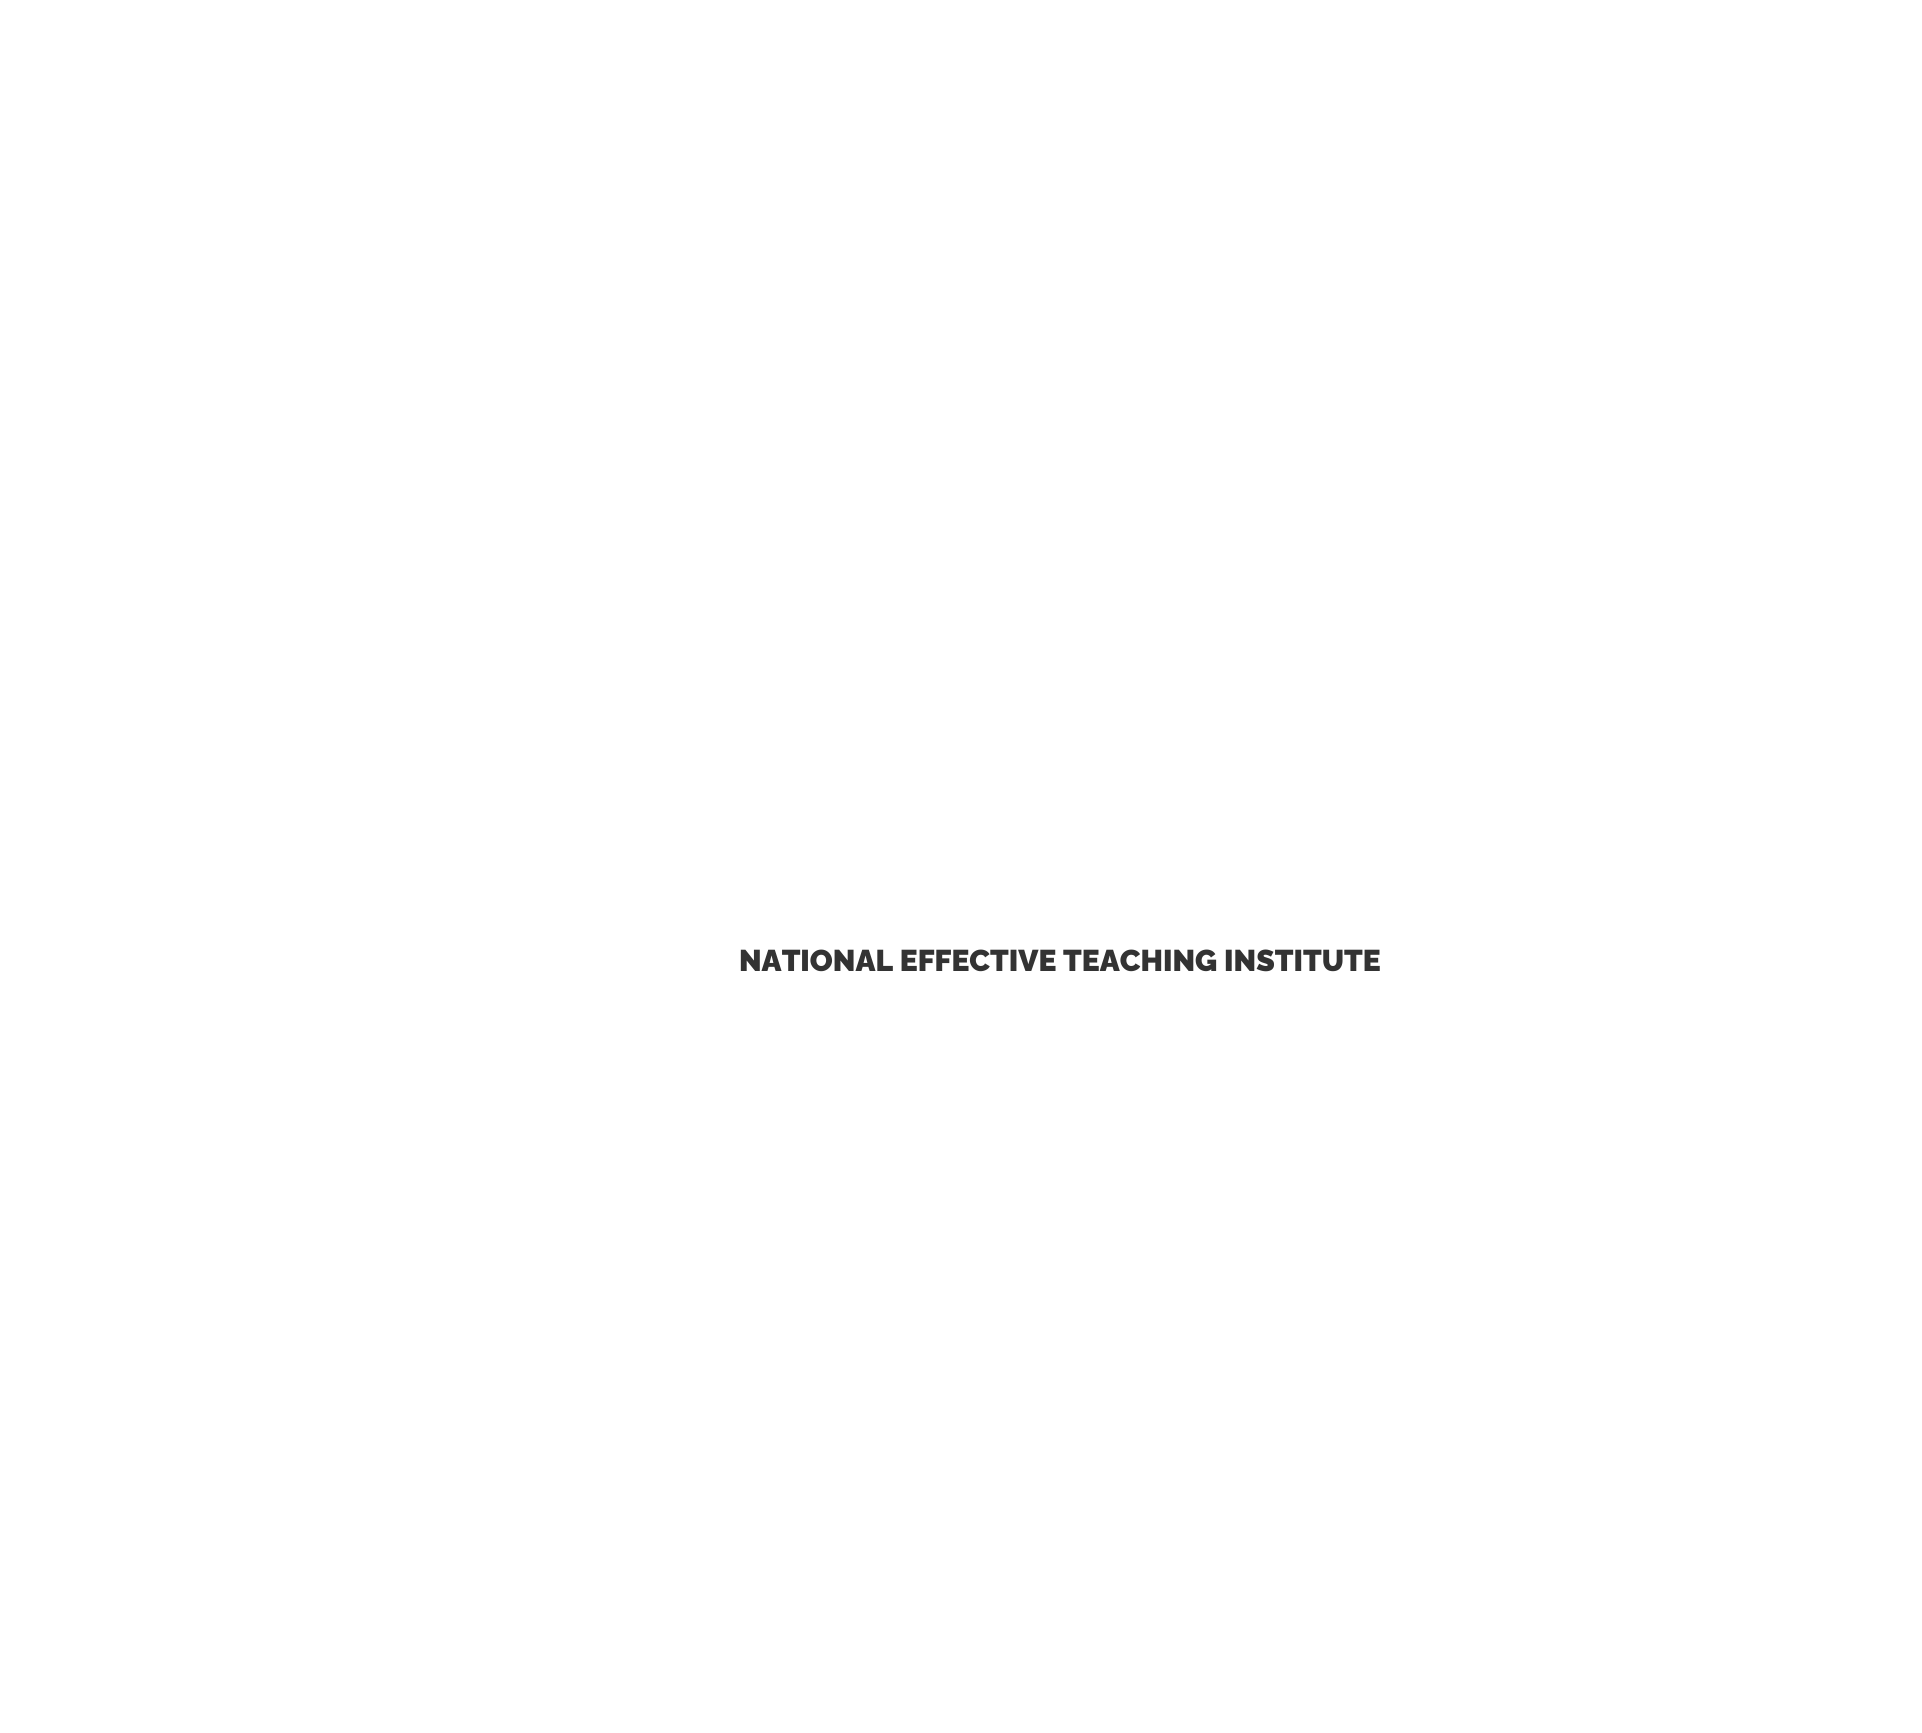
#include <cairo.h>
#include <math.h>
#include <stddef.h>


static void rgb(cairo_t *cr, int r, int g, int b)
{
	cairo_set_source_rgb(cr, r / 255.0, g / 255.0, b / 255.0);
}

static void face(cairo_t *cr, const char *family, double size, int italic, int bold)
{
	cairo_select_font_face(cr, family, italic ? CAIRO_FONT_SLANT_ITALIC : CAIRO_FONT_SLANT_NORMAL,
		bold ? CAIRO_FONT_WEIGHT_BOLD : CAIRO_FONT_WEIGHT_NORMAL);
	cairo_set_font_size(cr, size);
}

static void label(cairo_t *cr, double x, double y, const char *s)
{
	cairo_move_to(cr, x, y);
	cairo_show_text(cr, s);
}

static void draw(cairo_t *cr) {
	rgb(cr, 255, 255, 255);
	cairo_paint(cr);
	face(cr, "Raleway Black", 30, 0, 0);
	rgb(cr, 51, 51, 51);
	label(cr, 739, 971, "NATIONAL EFFECTIVE TEACHING INSTITUTE");
}

int main(void) {
	cairo_surface_t *surface = cairo_image_surface_create(CAIRO_FORMAT_RGB24, 1922, 1733);
	cairo_t *cr = cairo_create(surface);
	cairo_font_options_t *options = cairo_font_options_create();
	cairo_font_options_set_hint_metrics(options, CAIRO_HINT_METRICS_OFF);
	cairo_font_options_set_hint_style(options, CAIRO_HINT_STYLE_NONE);
	cairo_set_font_options(cr, options);
	cairo_set_miter_limit(cr, 4);
	draw(cr);
	cairo_surface_write_to_png(surface, "render.png");
	cairo_font_options_destroy(options);
	cairo_destroy(cr);
	cairo_surface_destroy(surface);
	return 0;
}
